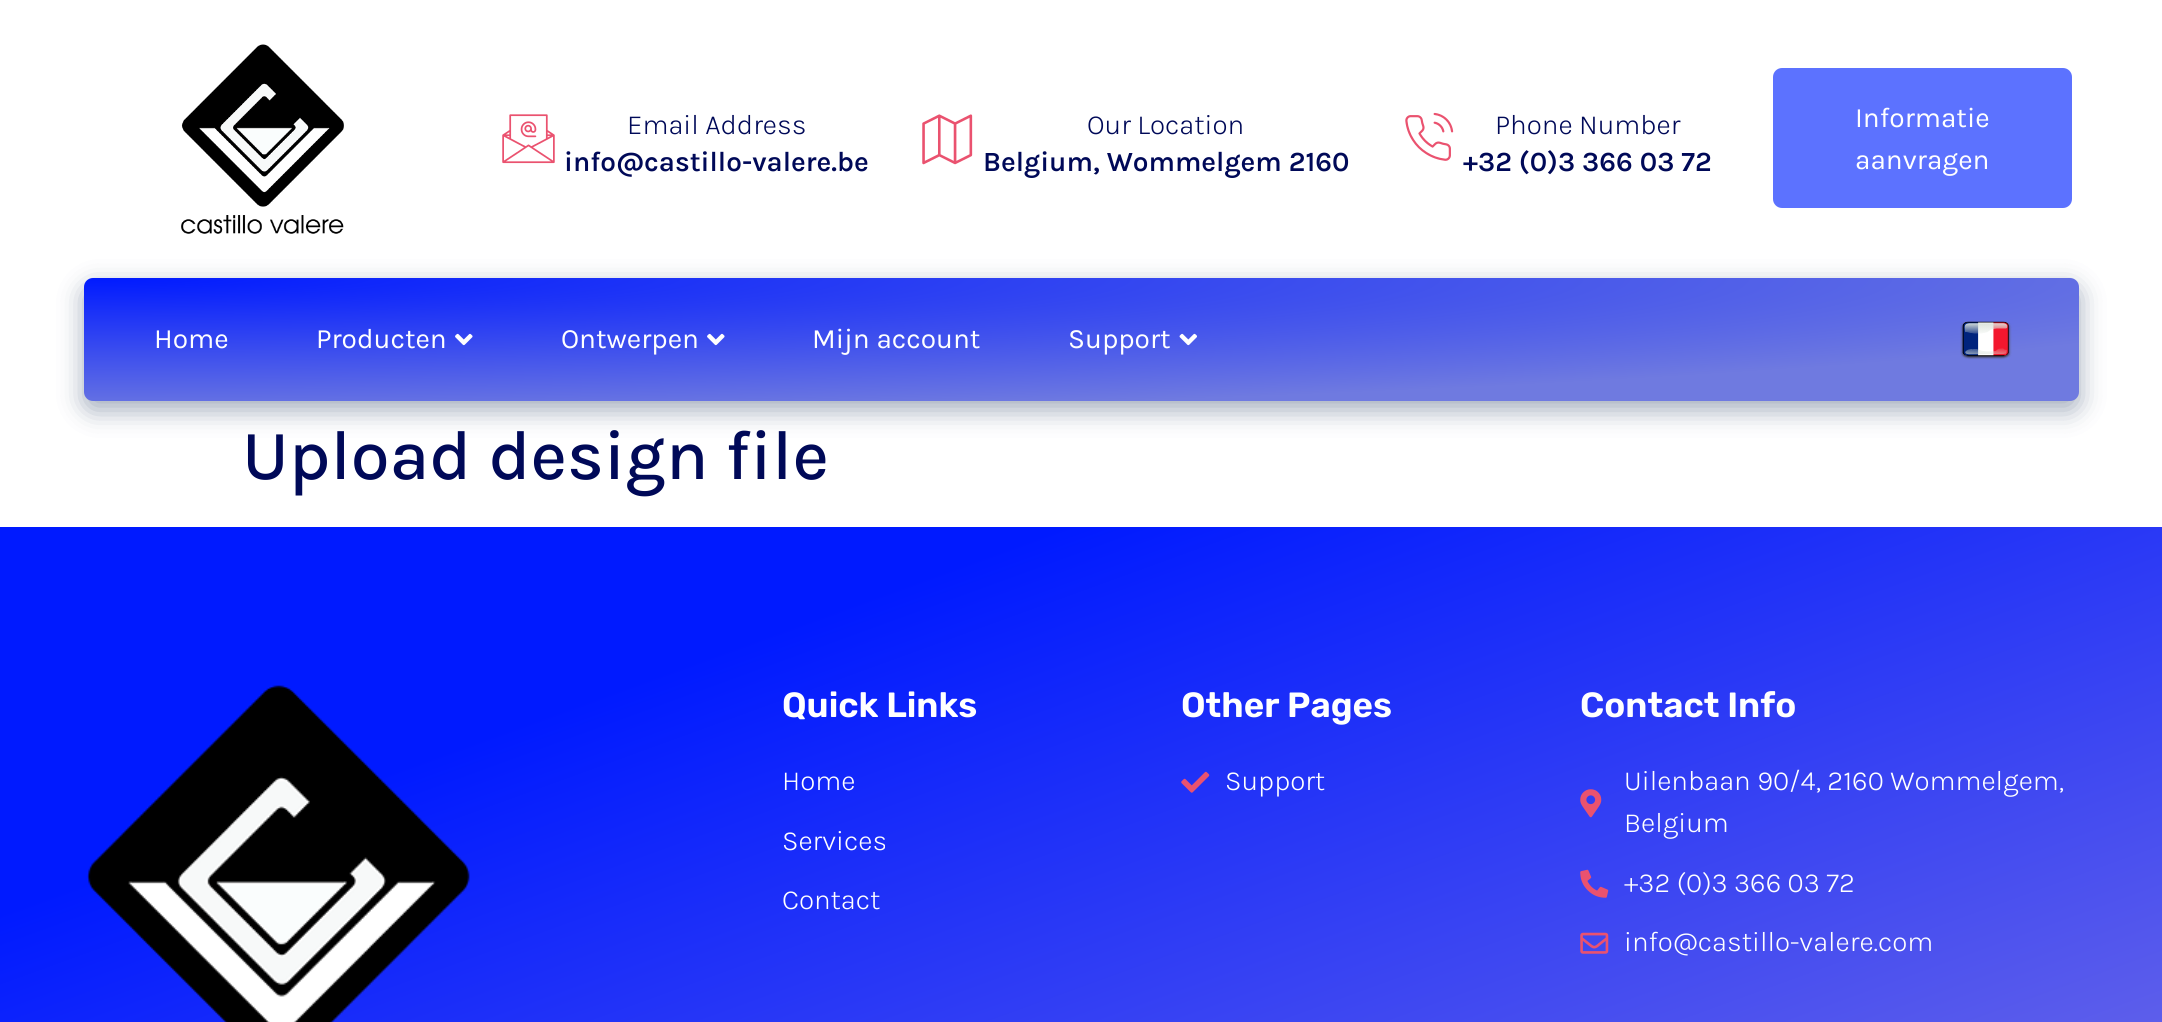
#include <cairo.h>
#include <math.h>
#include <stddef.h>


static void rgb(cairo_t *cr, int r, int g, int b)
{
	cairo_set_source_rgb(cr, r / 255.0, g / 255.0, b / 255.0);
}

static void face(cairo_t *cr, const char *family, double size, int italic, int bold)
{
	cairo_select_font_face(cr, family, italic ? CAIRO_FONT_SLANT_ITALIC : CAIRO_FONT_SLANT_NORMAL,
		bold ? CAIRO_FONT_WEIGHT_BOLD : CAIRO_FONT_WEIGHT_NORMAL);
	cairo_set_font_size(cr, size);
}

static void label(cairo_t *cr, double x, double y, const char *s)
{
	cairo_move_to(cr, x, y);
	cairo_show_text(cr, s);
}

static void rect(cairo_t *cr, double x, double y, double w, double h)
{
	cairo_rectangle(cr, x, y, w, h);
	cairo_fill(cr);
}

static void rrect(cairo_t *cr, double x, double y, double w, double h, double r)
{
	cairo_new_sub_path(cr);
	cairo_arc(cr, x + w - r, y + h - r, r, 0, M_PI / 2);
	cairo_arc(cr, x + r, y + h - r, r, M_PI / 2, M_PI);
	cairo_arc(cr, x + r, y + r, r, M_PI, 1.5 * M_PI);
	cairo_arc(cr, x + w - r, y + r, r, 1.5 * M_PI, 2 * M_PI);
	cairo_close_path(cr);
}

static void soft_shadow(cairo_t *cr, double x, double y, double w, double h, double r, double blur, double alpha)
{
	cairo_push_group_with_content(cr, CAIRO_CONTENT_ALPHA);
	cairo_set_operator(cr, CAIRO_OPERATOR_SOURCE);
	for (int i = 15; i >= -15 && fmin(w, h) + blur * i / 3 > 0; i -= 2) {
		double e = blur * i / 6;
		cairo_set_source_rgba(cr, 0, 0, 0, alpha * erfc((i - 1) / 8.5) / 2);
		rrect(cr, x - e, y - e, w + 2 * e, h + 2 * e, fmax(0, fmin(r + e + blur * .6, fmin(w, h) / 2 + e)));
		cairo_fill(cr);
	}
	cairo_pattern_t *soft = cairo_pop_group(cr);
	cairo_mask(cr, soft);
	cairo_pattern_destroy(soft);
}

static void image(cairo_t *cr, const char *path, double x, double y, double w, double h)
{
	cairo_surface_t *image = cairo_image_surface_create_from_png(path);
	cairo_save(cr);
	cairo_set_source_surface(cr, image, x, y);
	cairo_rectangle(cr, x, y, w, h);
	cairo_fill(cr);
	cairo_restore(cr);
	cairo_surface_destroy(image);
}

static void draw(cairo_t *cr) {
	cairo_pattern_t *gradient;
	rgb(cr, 255, 255, 255);
	cairo_paint(cr);
	image(cr, "image0.png", 181, 44, 163, 190);
	image(cr, "image1.png", 502, 114, 53, 50);
	face(cr, "Karla Light", 28, 0, 0);
	rgb(cr, 0, 9, 88);
	label(cr, 627, 134, "Email Address");
	face(cr, "Karla SemiBold", 28, 0, 0);
	label(cr, 564, 171, "info@castillo-valere.be");
	image(cr, "image2.png", 922, 114, 51, 51);
	face(cr, "Karla Light", 28, 0, 0);
	label(cr, 1087, 134, "Our Location");
	face(cr, "Karla SemiBold", 28, 0, 0);
	label(cr, 983, 171, "Belgium, Wommelgem 2160");
	image(cr, "image3.png", 1405, 112, 49, 49);
	face(cr, "Karla Light", 28, 0, 0);
	label(cr, 1495, 134, "Phone Number");
	face(cr, "Karla SemiBold", 28, 0, 0);
	label(cr, 1463, 171, "+32 (0)3 366 03 72");
	rgb(cr, 92, 114, 255);
	rrect(cr, 1773, 68, 299, 140, 9);
	cairo_fill(cr);
	face(cr, "Karla", 28, 0, 0);
	rgb(cr, 255, 255, 255);
	label(cr, 1855, 127, "Informatie");
	label(cr, 1855, 169, "aanvragen");
	rgb(cr, 0, 26, 71);
	soft_shadow(cr, 84, 287, 1995, 123, 9, 13, 0.37);
	gradient = cairo_pattern_create_radial(0, 0, 0, 0, 0, 1);
	cairo_pattern_set_matrix(gradient, &(cairo_matrix_t){1.0 / 2821, 0, 0, 1.0 / 173, -1.0 * 84 / 2821, -1.0 * 278 / 173});
	cairo_pattern_add_color_stop_rgba(gradient, 0, 0, 0.102, 1, 1);
	cairo_pattern_add_color_stop_rgba(gradient, 0.8, 0.435, 0.478, 0.878, 1);
	cairo_set_source(cr, gradient);
	cairo_pattern_destroy(gradient);
	rrect(cr, 84, 278, 1995, 123, 9);
	cairo_fill(cr);
	rgb(cr, 255, 255, 255);
	label(cr, 154, 348, "Home");
	label(cr, 316, 348, "Producten");
	image(cr, "image4.png", 455, 333, 18, 13);
	label(cr, 561, 348, "Ontwerpen");
	image(cr, "image5.png", 707, 333, 18, 13);
	label(cr, 812, 348, "Mijn account");
	label(cr, 1068, 348, "Support");
	image(cr, "image6.png", 1179, 333, 18, 13);
	image(cr, "image7.png", 1960, 321, 52, 39);
	face(cr, "Karla Medium", 70, 0, 0);
	rgb(cr, 0, 9, 88);
	label(cr, 242, 479, "Upload design file");
	gradient = cairo_pattern_create_linear(812, 231, 1351, 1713);
	cairo_pattern_add_color_stop_rgba(gradient, 0.23, 0, 0.102, 1, 1);
	cairo_pattern_add_color_stop_rgba(gradient, 1, 0.525, 0.486, 0.886, 1);
	cairo_set_source(cr, gradient);
	cairo_pattern_destroy(gradient);
	rect(cr, 0, 527, 2162, 495);
	image(cr, "image8.png", 87, 685, 383, 337);
	face(cr, "Rubik SemiBold", 35, 0, 0);
	rgb(cr, 255, 255, 255);
	label(cr, 782, 717, "Quick Links");
	face(cr, "Karla Light", 28, 0, 0);
	label(cr, 782, 790, "Home");
	label(cr, 782, 850, "Services");
	label(cr, 782, 909, "Contact");
	face(cr, "Rubik SemiBold", 35, 0, 0);
	label(cr, 1181, 717, "Other Pages");
	image(cr, "image9.png", 1181, 771, 29, 22);
	face(cr, "Karla Light", 28, 0, 0);
	label(cr, 1225, 790, "Support");
	face(cr, "Rubik SemiBold", 35, 0, 0);
	label(cr, 1580, 717, "Contact Info");
	image(cr, "image10.png", 1580, 789, 22, 29);
	face(cr, "Karla Light", 28, 0, 0);
	label(cr, 1624, 790, "Uilenbaan 90/4, 2160 Wommelgem,");
	label(cr, 1624, 832, "Belgium");
	image(cr, "image11.png", 1580, 869, 29, 29);
	label(cr, 1624, 892, "+32 (0)3 366 03 72");
	image(cr, "image12.png", 1580, 932, 29, 22);
	label(cr, 1624, 951, "info@castillo-valere.com");
}

int main(void) {
	cairo_surface_t *surface = cairo_image_surface_create(CAIRO_FORMAT_RGB24, 2162, 1022);
	cairo_t *cr = cairo_create(surface);
	cairo_font_options_t *options = cairo_font_options_create();
	cairo_font_options_set_hint_metrics(options, CAIRO_HINT_METRICS_OFF);
	cairo_font_options_set_hint_style(options, CAIRO_HINT_STYLE_NONE);
	cairo_set_font_options(cr, options);
	cairo_set_miter_limit(cr, 4);
	draw(cr);
	cairo_surface_write_to_png(surface, "render.png");
	cairo_font_options_destroy(options);
	cairo_destroy(cr);
	cairo_surface_destroy(surface);
	return 0;
}
